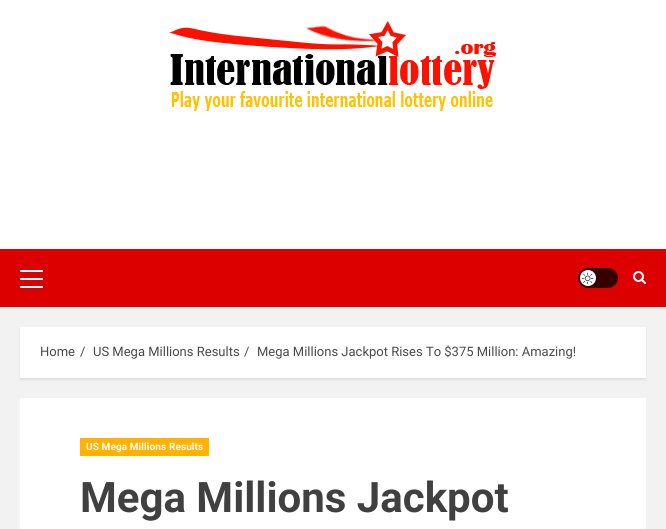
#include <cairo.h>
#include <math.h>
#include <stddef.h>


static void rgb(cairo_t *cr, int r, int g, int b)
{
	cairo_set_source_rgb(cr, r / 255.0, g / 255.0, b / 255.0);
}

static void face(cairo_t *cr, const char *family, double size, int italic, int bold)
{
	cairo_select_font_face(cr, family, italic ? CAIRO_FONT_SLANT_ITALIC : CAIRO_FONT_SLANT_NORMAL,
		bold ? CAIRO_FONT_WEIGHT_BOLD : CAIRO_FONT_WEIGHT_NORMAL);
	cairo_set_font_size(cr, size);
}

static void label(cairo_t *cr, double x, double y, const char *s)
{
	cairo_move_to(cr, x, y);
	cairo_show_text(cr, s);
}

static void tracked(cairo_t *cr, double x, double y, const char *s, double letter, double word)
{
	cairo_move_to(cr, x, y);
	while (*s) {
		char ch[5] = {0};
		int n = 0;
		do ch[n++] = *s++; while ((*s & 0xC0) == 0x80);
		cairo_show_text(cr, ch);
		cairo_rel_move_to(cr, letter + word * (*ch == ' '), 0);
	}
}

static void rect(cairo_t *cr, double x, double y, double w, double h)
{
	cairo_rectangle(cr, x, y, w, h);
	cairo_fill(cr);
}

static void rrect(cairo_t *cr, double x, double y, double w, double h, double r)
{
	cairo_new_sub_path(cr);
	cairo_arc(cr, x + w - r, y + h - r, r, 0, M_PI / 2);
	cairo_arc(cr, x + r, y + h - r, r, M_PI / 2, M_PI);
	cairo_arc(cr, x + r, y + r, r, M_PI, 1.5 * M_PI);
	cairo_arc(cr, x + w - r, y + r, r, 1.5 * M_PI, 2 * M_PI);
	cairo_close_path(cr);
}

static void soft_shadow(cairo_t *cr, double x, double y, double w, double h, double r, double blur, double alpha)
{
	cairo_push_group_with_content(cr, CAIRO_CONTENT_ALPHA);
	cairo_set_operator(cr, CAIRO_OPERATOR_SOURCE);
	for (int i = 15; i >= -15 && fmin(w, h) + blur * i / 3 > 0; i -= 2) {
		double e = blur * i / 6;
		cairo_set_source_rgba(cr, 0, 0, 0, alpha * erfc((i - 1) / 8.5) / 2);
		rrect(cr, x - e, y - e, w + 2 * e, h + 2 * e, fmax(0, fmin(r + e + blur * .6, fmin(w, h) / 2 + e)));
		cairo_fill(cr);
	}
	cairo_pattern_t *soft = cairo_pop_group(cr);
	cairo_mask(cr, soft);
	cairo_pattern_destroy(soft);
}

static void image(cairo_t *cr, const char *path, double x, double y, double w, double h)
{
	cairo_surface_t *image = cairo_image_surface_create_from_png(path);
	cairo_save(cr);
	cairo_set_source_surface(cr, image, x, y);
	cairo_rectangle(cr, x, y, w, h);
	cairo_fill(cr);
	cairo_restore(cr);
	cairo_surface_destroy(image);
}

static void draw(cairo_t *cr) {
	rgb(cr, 242, 242, 242);
	cairo_paint(cr);
	rgb(cr, 255, 255, 255);
	rect(cr, 0, 0, 666, 249);
	image(cr, "image0.png", 169, 21, 328, 90);
	rgb(cr, 221, 0, 0);
	rect(cr, 0, 249, 666, 58);
	rgb(cr, 255, 255, 255);
	rect(cr, 20, 278, 23, 2);
	rect(cr, 20, 270, 23, 2);
	rect(cr, 20, 286, 23, 2);
	rgb(cr, 55, 0, 0);
	rrect(cr, 578, 268, 40, 20, 10);
	cairo_fill(cr);
	rgb(cr, 255, 255, 255);
	cairo_arc(cr, 588, 278, 8, 0, 2 * M_PI);
	cairo_fill(cr);
	image(cr, "image1.png", 582, 272, 12, 12);
	image(cr, "image2.png", 633, 271, 13, 13);
	rgb(cr, 0, 0, 0);
	soft_shadow(cr, 20, 329, 626, 51, 0, 1, 0.08);
	rgb(cr, 255, 255, 255);
	rect(cr, 20, 327, 626, 51);
	face(cr, "Roboto", 13, 0, 0);
	rgb(cr, 74, 74, 74);
	label(cr, 40, 356, "Home");
	label(cr, 80, 356, "/");
	label(cr, 93, 356, "US Mega Millions Results");
	label(cr, 244, 356, "/");
	label(cr, 257, 356, "Mega Millions Jackpot Rises To $375 Million: Amazing!");
	rgb(cr, 255, 255, 255);
	rect(cr, 20, 398, 626, 131);
	rgb(cr, 255, 178, 0);
	rect(cr, 80, 438, 129, 18);
	face(cr, "Roboto", 10, 0, 1);
	rgb(cr, 255, 255, 255);
	tracked(cr, 86, 450, "US Mega Millions Results", 0.1, 0);
	face(cr, "Roboto", 42, 0, 1);
	rgb(cr, 64, 64, 64);
	label(cr, 80, 512, "Mega Millions Jackpot");
}

int main(void) {
	cairo_surface_t *surface = cairo_image_surface_create(CAIRO_FORMAT_RGB24, 666, 529);
	cairo_t *cr = cairo_create(surface);
	cairo_font_options_t *options = cairo_font_options_create();
	cairo_font_options_set_hint_metrics(options, CAIRO_HINT_METRICS_OFF);
	cairo_font_options_set_hint_style(options, CAIRO_HINT_STYLE_NONE);
	cairo_set_font_options(cr, options);
	cairo_set_miter_limit(cr, 4);
	draw(cr);
	cairo_surface_write_to_png(surface, "render.png");
	cairo_font_options_destroy(options);
	cairo_destroy(cr);
	cairo_surface_destroy(surface);
	return 0;
}
